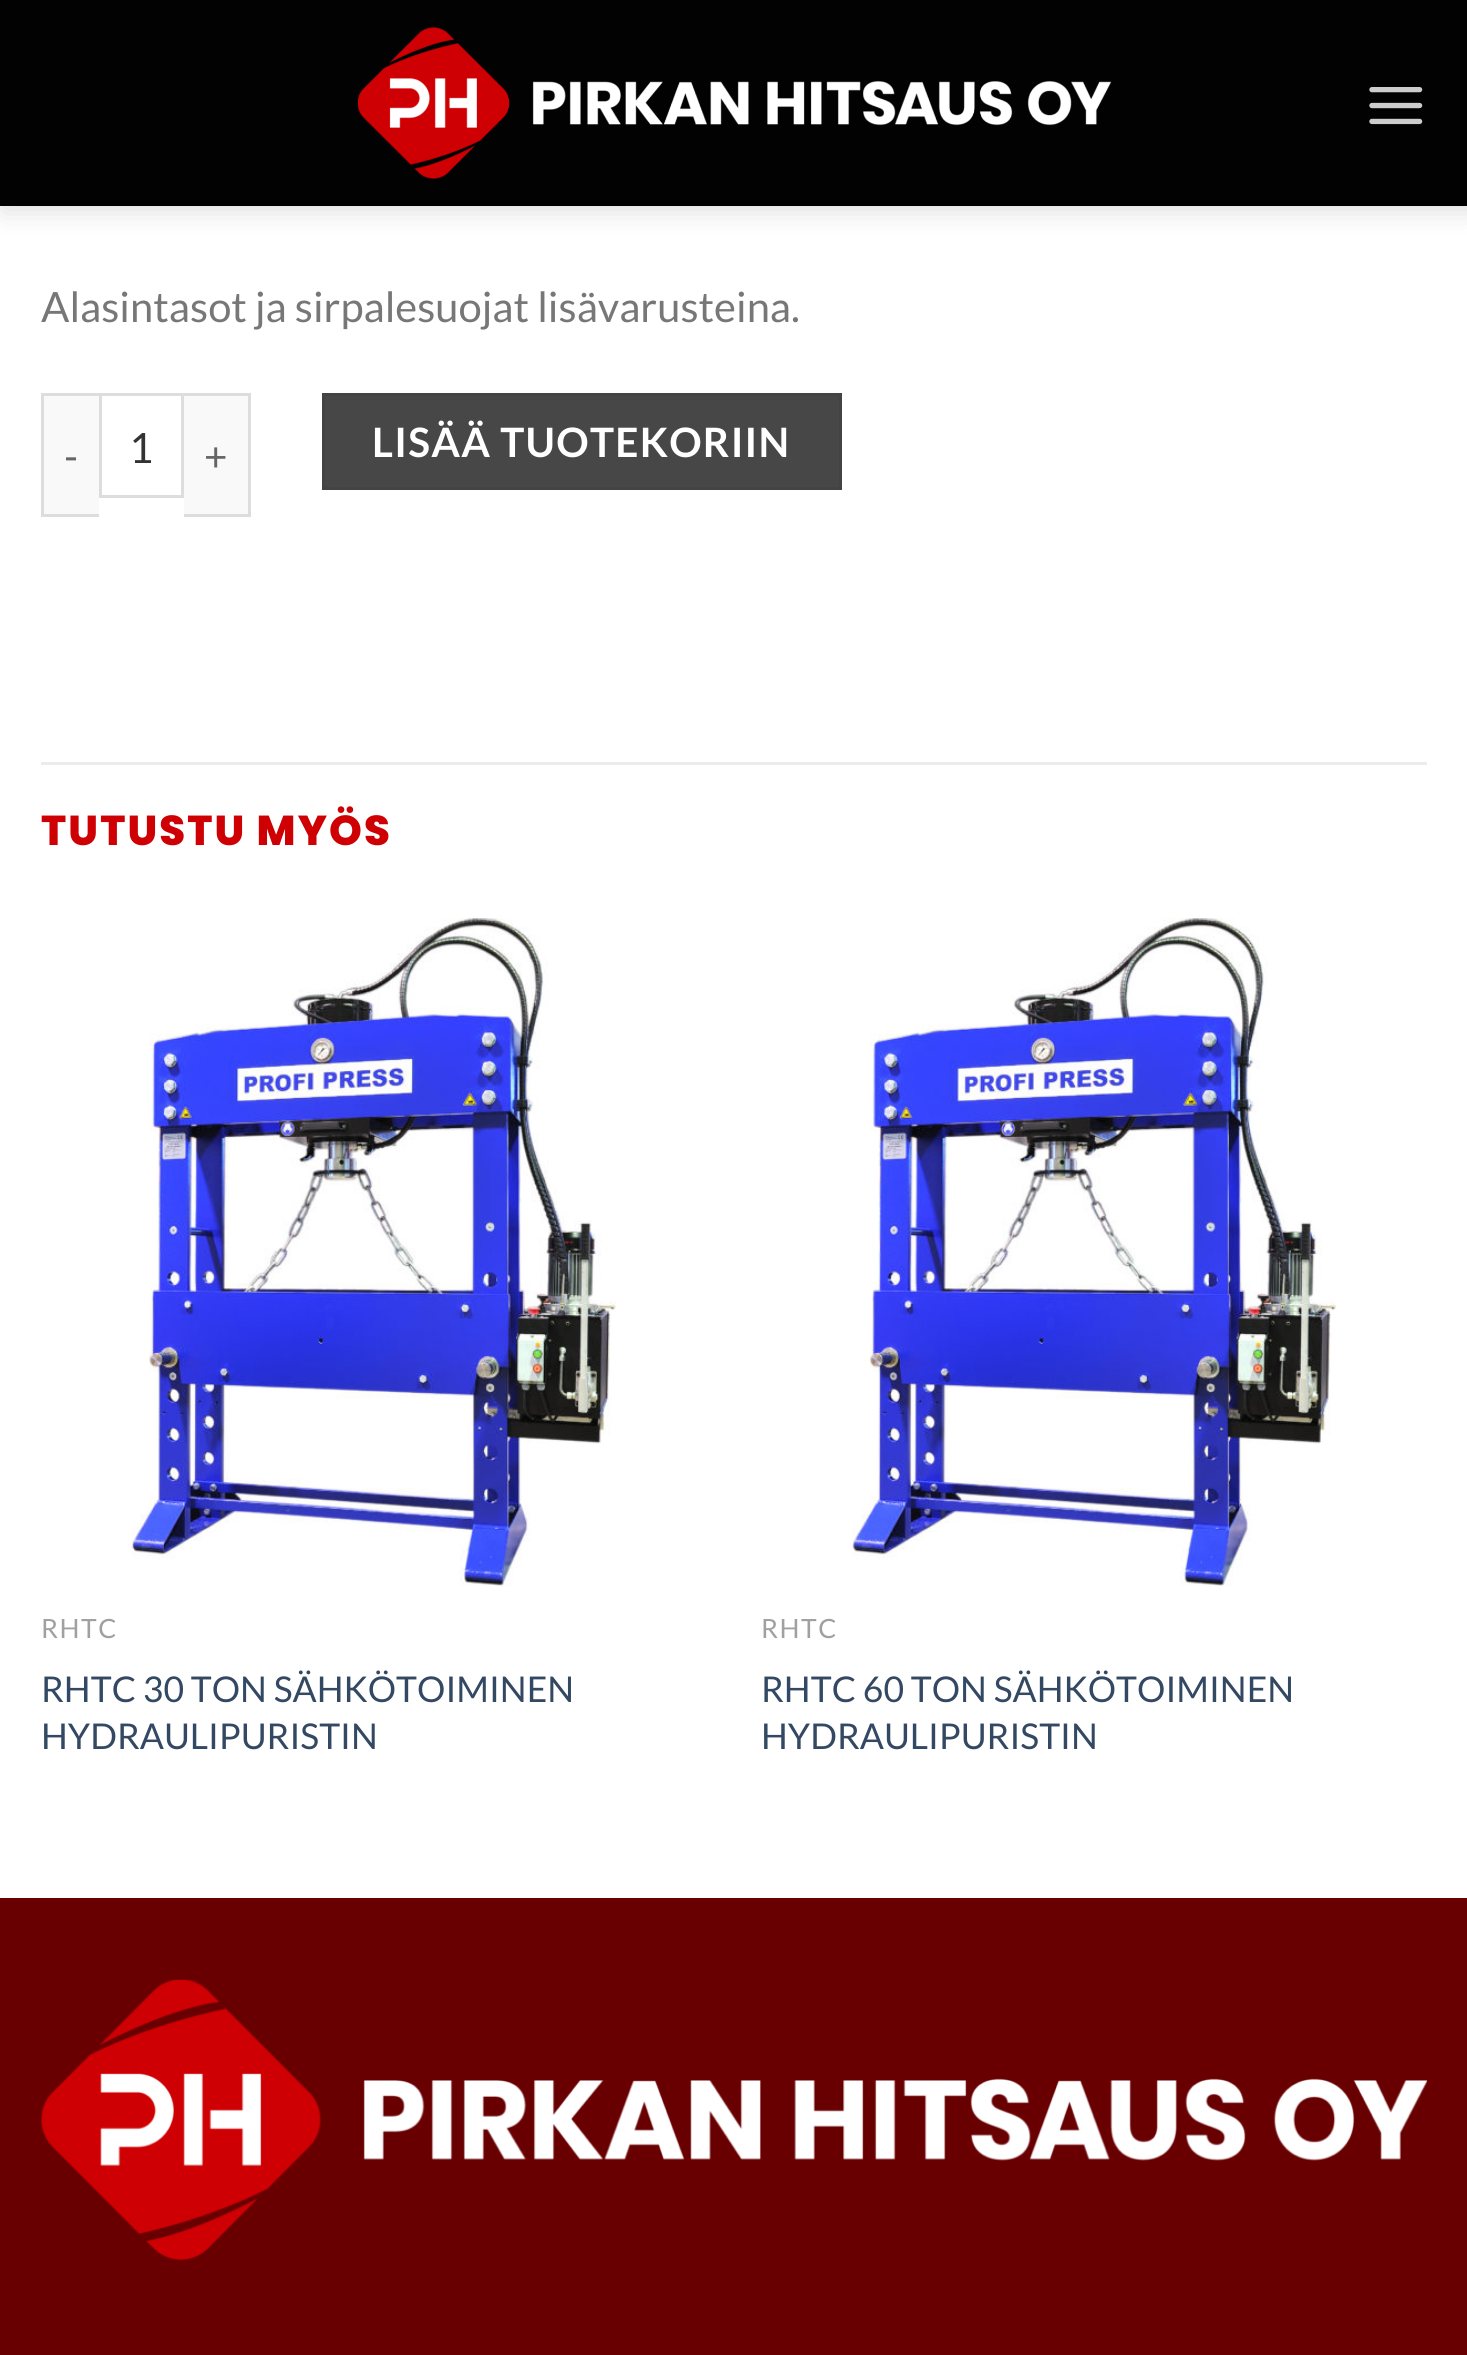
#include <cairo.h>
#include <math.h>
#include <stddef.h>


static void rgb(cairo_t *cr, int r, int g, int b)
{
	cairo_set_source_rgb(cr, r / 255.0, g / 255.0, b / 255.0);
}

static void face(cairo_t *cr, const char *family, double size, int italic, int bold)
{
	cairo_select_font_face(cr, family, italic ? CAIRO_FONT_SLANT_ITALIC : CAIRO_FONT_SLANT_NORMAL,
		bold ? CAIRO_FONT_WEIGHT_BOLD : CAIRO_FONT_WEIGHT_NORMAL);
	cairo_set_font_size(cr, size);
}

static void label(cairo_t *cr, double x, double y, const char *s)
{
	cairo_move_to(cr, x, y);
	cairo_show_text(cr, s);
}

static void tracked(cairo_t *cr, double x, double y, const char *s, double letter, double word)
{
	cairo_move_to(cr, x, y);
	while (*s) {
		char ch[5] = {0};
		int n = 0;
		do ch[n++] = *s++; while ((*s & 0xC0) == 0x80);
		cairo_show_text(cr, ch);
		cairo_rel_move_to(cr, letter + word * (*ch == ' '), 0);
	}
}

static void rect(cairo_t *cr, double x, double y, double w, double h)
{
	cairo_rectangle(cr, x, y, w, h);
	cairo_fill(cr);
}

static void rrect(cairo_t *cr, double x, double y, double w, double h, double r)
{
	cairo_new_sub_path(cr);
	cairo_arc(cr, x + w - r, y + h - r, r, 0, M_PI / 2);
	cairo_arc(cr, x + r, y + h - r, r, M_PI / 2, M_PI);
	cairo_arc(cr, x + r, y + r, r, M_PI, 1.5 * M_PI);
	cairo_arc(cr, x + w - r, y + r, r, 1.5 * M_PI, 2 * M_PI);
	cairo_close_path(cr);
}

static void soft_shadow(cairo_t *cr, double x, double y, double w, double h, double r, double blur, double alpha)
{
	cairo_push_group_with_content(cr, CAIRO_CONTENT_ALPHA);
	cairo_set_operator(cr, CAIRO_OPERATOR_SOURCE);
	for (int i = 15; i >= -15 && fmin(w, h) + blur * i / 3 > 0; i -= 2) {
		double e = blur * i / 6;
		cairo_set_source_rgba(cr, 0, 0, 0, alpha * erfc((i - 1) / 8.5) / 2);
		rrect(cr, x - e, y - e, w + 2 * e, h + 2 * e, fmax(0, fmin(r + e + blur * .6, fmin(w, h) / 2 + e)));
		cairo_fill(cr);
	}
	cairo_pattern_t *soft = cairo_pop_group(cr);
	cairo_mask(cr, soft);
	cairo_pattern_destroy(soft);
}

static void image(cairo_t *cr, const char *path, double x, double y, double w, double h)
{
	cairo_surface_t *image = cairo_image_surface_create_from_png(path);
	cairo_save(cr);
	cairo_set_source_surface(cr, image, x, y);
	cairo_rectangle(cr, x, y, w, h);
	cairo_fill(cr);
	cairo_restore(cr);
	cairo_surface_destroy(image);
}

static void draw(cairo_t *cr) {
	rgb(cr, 255, 255, 255);
	cairo_paint(cr);
	rgb(cr, 0, 0, 0);
	soft_shadow(cr, 3, 3, 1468, 206, 0, 14, 0.15);
	rgb(cr, 2, 2, 2);
	rect(cr, 0, 0, 1467, 206);
	image(cr, "image0.png", 358, 27, 753, 152);
	image(cr, "image1.png", 1369, 87, 54, 38);
	face(cr, "Lato", 41.75, 0, 0);
	rgb(cr, 119, 119, 119);
	label(cr, 41, 322, "Alasintasot ja sirpalesuojat lisävarusteina.");
	rgb(cr, 249, 249, 249);
	rect(cr, 44, 396, 55, 118);
	rgb(cr, 221, 221, 221);
	rect(cr, 41, 393, 58, 3);
	rect(cr, 41, 514, 58, 3);
	rect(cr, 41, 393, 3, 124);
	face(cr, "Lato", 40.5, 0, 0);
	rgb(cr, 102, 102, 102);
	tracked(cr, 64, 471, "-", 1.25, 0);
	cairo_rectangle(cr, 100.5, 394.5, 82, 102);
	rgb(cr, 221, 221, 221);
	cairo_set_line_width(cr, 3);
	cairo_stroke(cr);
	face(cr, "Lato", 41.75, 0, 0);
	rgb(cr, 51, 51, 51);
	label(cr, 129, 463, "1");
	rgb(cr, 249, 249, 249);
	rect(cr, 184, 396, 64, 118);
	rgb(cr, 221, 221, 221);
	rect(cr, 184, 393, 66, 3);
	rect(cr, 248, 393, 3, 124);
	rect(cr, 184, 514, 66, 3);
	face(cr, "Lato", 40.5, 0, 0);
	rgb(cr, 102, 102, 102);
	tracked(cr, 204, 471, "+", 1.25, 0);
	rgb(cr, 71, 71, 71);
	cairo_rectangle(cr, 323.5, 394.5, 517, 94);
	cairo_fill_preserve(cr);
	rgb(cr, 67, 67, 67);
	cairo_stroke(cr);
	face(cr, "Lato", 40.5, 0, 1);
	rgb(cr, 255, 255, 255);
	tracked(cr, 372, 457, "LISÄÄ TUOTEKORIIN", 1.25, 0);
	rgb(cr, 236, 236, 236);
	rect(cr, 41, 762, 1386, 3);
	face(cr, "Poppins ExtraBold", 41.75, 0, 0);
	rgb(cr, 206, 0, 3);
	tracked(cr, 41, 845, "TUTUSTU MYÖS", 2.1, 0);
	image(cr, "image2.png", 131, 918, 485, 668);
	face(cr, "Lato", 26.5, 0, 0);
	rgb(cr, 160, 160, 160);
	tracked(cr, 41, 1638, "RHTC", 1.5, 0);
	face(cr, "Lato", 35.5, 0, 0);
	rgb(cr, 51, 72, 98);
	label(cr, 41, 1702, "RHTC 30 TON SÄHKÖTOIMINEN");
	label(cr, 41, 1749, "HYDRAULIPURISTIN");
	image(cr, "image3.png", 852, 918, 485, 668);
	face(cr, "Lato", 26.5, 0, 0);
	rgb(cr, 160, 160, 160);
	tracked(cr, 761, 1638, "RHTC", 1.5, 0);
	face(cr, "Lato", 35.5, 0, 0);
	rgb(cr, 51, 72, 98);
	label(cr, 761, 1702, "RHTC 60 TON SÄHKÖTOIMINEN");
	label(cr, 761, 1749, "HYDRAULIPURISTIN");
	rgb(cr, 104, 0, 2);
	rect(cr, 0, 1898, 1467, 457);
	image(cr, "image4.png", 41, 1979, 1387, 281);
}

int main(void) {
	cairo_surface_t *surface = cairo_image_surface_create(CAIRO_FORMAT_RGB24, 1467, 2355);
	cairo_t *cr = cairo_create(surface);
	cairo_font_options_t *options = cairo_font_options_create();
	cairo_font_options_set_hint_metrics(options, CAIRO_HINT_METRICS_OFF);
	cairo_font_options_set_hint_style(options, CAIRO_HINT_STYLE_NONE);
	cairo_set_font_options(cr, options);
	cairo_set_miter_limit(cr, 4);
	draw(cr);
	cairo_surface_write_to_png(surface, "render.png");
	cairo_font_options_destroy(options);
	cairo_destroy(cr);
	cairo_surface_destroy(surface);
	return 0;
}
